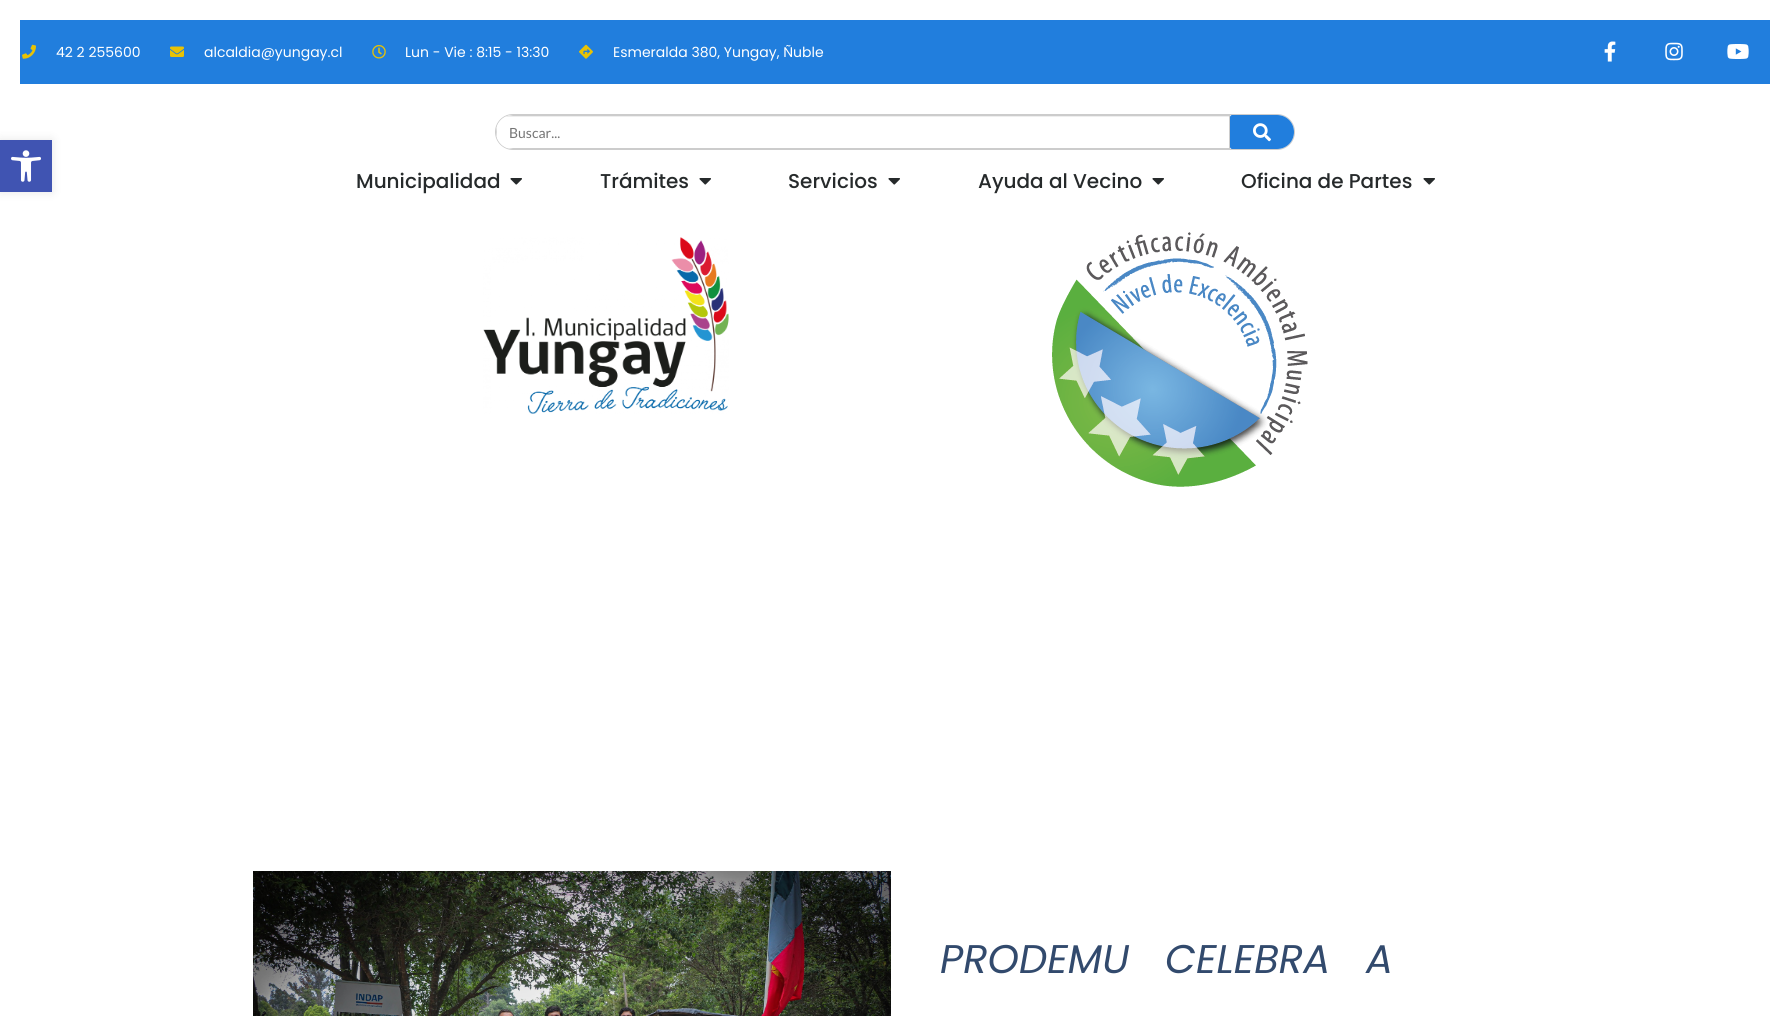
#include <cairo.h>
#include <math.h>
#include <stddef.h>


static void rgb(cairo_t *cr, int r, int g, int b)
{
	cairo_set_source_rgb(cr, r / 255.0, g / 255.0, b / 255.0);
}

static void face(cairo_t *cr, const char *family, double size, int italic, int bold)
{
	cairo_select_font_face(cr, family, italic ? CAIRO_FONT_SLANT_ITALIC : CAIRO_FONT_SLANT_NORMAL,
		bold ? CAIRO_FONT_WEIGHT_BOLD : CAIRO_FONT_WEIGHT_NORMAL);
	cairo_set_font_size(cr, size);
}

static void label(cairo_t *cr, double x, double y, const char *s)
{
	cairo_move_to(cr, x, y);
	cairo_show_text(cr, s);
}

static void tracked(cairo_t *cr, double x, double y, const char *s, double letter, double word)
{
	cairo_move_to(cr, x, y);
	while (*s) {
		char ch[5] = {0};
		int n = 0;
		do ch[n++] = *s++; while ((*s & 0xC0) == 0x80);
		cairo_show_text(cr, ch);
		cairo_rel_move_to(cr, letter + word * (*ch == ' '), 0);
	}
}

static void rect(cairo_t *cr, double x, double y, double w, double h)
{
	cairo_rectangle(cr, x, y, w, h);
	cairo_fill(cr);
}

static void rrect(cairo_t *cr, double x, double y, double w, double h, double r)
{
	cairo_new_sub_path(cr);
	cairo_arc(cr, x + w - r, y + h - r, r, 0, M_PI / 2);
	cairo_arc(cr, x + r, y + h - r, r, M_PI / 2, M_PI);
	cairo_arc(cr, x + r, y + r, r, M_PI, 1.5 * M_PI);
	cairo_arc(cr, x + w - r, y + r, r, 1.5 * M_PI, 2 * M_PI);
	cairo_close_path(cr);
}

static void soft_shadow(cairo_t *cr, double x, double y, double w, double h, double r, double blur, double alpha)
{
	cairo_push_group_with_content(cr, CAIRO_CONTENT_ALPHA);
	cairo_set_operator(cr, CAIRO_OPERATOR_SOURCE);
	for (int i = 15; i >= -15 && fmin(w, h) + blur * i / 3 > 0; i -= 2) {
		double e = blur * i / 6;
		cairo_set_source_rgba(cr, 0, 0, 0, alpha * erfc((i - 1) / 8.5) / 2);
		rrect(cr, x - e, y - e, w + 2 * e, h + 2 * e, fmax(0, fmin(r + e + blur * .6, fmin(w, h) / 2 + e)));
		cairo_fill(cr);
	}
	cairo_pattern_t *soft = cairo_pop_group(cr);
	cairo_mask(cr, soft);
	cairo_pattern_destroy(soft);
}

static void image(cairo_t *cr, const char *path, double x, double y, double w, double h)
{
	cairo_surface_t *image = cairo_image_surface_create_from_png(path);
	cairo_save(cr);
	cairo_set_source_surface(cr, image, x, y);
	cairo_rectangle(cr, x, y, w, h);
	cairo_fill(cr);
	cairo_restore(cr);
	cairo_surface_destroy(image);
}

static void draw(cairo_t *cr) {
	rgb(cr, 255, 255, 255);
	cairo_paint(cr);
	rgb(cr, 0, 0, 0);
	soft_shadow(cr, 0, 140, 52, 52, 0, 5, 0.1);
	rgb(cr, 64, 84, 178);
	rect(cr, 0, 140, 52, 52);
	image(cr, "image0.png", 11, 150, 30, 32);
	rgb(cr, 33, 126, 221);
	rect(cr, 20, 20, 1750, 64);
	image(cr, "image1.png", 22, 44, 14, 15);
	face(cr, "Poppins", 14, 0, 0);
	rgb(cr, 255, 255, 255);
	label(cr, 56, 57, "42 2 255600");
	image(cr, "image2.png", 170, 46, 14, 11);
	label(cr, 204, 57, "alcaldia@yungay.cl");
	image(cr, "image3.png", 372, 45, 14, 14);
	label(cr, 405, 57, "Lun - Vie : 8:15 - 13:30");
	image(cr, "image4.png", 579, 44, 14, 15);
	label(cr, 613, 57, "Esmeralda 380, Yungay, Ñuble");
	image(cr, "image5.png", 1604, 41, 12, 21);
	image(cr, "image6.png", 1665, 42, 18, 19);
	image(cr, "image7.png", 1727, 44, 22, 15);
	rrect(cr, 495.5, 114.5, 799, 35, 17.5);
	rgb(cr, 204, 204, 204);
	cairo_set_line_width(cr, 1);
	cairo_stroke(cr);
	rgb(cr, 255, 255, 255);
	cairo_new_path(cr);
	cairo_move_to(cr, 513, 115);
	cairo_line_to(cr, 1230, 115);
	cairo_line_to(cr, 1230, 149);
	cairo_line_to(cr, 513, 149);
	cairo_curve_to(cr, 503.5, 149, 496, 141.5, 496, 132);
	cairo_curve_to(cr, 496, 122.5, 503.5, 115, 513, 115);
	cairo_close_path(cr);
	cairo_fill(cr);
	cairo_save(cr);
	rrect(cr, 496, 115, 798, 34, 17);
	cairo_clip(cr);
	cairo_set_source_rgba(cr, 0, 0, 0, 0.07);
	rect(cr, 506, 116, 723, 1);
	cairo_restore(cr);
	rgb(cr, 204, 204, 204);
	cairo_set_fill_rule(cr, CAIRO_FILL_RULE_EVEN_ODD);
	cairo_new_path(cr);
	cairo_move_to(cr, 513, 115);
	cairo_line_to(cr, 507, 116);
	cairo_line_to(cr, 1229, 116);
	cairo_line_to(cr, 1229, 148);
	cairo_line_to(cr, 507, 148);
	cairo_line_to(cr, 513, 149);
	cairo_line_to(cr, 1230, 149);
	cairo_line_to(cr, 1230, 115);
	cairo_close_path(cr);
	cairo_move_to(cr, 497, 138);
	cairo_curve_to(cr, 496, 134, 496, 130, 497, 126);
	cairo_close_path(cr);
	cairo_fill(cr);
	face(cr, "Lato", 14, 0, 0);
	rgb(cr, 117, 117, 117);
	label(cr, 509, 138, "Buscar...");
	rgb(cr, 33, 126, 221);
	cairo_new_path(cr);
	cairo_move_to(cr, 1232, 115);
	cairo_line_to(cr, 1277, 115);
	cairo_curve_to(cr, 1286.5, 115, 1294, 122.5, 1294, 132);
	cairo_curve_to(cr, 1294, 141.5, 1286.5, 149, 1277, 149);
	cairo_line_to(cr, 1232, 149);
	cairo_curve_to(cr, 1231, 149, 1230, 148, 1230, 147);
	cairo_line_to(cr, 1230, 117);
	cairo_curve_to(cr, 1230, 116, 1231, 115, 1232, 115);
	cairo_close_path(cr);
	cairo_fill(cr);
	image(cr, "image8.png", 1253, 123, 18, 19);
	face(cr, "Poppins Medium", 20, 0, 0);
	rgb(cr, 38, 42, 43);
	label(cr, 356, 188, "Municipalidad");
	image(cr, "image9.png", 510, 178, 12, 7);
	label(cr, 600, 188, "Trámites");
	image(cr, "image9.png", 699, 178, 12, 7);
	label(cr, 788, 188, "Servicios");
	image(cr, "image9.png", 888, 178, 12, 7);
	label(cr, 978, 188, "Ayuda al Vecino");
	image(cr, "image9.png", 1152, 178, 12, 7);
	label(cr, 1241, 188, "Oficina de Partes");
	image(cr, "image9.png", 1423, 178, 12, 7);
	image(cr, "image10.png", 483, 237, 246, 177);
	image(cr, "image11.png", 1052, 232, 256, 255);
	image(cr, "image12.png", 253, 871, 638, 145);
	face(cr, "Poppins", 40, 1, 0);
	rgb(cr, 50, 74, 109);
	tracked(cr, 940, 973, "PRODEMU CELEBRA A", 0, 24);
}

int main(void) {
	cairo_surface_t *surface = cairo_image_surface_create(CAIRO_FORMAT_RGB24, 1790, 1016);
	cairo_t *cr = cairo_create(surface);
	cairo_font_options_t *options = cairo_font_options_create();
	cairo_font_options_set_hint_metrics(options, CAIRO_HINT_METRICS_OFF);
	cairo_font_options_set_hint_style(options, CAIRO_HINT_STYLE_NONE);
	cairo_set_font_options(cr, options);
	cairo_set_miter_limit(cr, 4);
	draw(cr);
	cairo_surface_write_to_png(surface, "render.png");
	cairo_font_options_destroy(options);
	cairo_destroy(cr);
	cairo_surface_destroy(surface);
	return 0;
}
